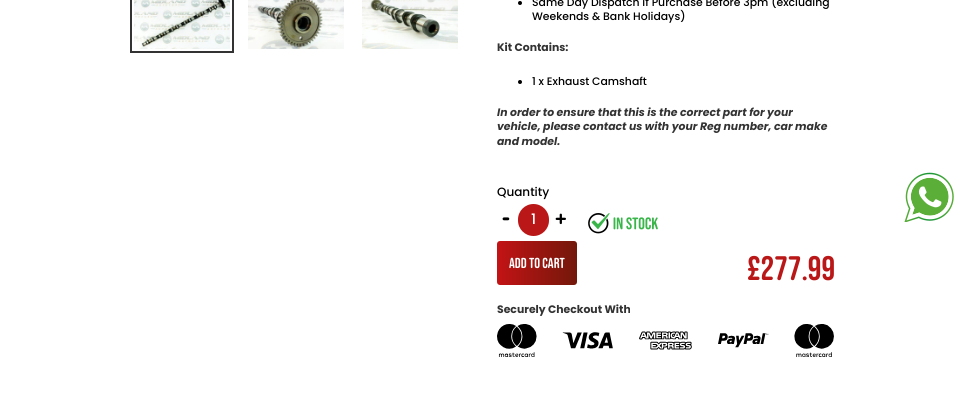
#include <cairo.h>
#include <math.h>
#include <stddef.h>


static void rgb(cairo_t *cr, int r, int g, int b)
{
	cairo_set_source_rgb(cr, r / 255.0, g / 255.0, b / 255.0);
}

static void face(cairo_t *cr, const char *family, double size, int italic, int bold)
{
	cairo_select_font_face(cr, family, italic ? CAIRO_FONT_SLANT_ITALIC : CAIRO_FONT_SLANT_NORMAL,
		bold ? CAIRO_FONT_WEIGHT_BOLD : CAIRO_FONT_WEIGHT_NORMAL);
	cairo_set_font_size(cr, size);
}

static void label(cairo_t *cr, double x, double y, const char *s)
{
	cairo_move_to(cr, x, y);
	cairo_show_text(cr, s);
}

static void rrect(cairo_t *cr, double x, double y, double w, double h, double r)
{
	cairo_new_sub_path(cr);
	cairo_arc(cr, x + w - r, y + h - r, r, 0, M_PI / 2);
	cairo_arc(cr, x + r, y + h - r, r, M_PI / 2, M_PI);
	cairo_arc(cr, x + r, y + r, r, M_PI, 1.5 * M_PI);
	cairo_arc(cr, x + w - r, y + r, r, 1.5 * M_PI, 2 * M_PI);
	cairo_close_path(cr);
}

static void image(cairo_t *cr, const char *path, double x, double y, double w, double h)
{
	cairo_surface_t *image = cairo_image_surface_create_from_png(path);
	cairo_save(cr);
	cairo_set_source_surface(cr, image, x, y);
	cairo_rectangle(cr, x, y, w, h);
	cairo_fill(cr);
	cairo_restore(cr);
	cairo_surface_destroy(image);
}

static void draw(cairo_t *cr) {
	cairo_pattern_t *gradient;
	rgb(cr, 255, 255, 255);
	cairo_paint(cr);
	cairo_rectangle(cr, 131, -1, 102, 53);
	rgb(cr, 51, 51, 51);
	cairo_stroke(cr);
	image(cr, "image0.png", 134, 0, 96, 49);
	image(cr, "image1.png", 248, 0, 96, 49);
	image(cr, "image2.png", 362, 0, 96, 49);
	rgb(cr, 0, 0, 0);
	cairo_arc(cr, 520, 3, 2, 0, 2 * M_PI);
	cairo_fill(cr);
	face(cr, "Poppins Medium", 10.85, 0, 0);
	label(cr, 532, 6, "Same Day Dispatch if Purchase Before 3pm (excluding");
	label(cr, 532, 20, "Weekends & Bank Holidays)");
	face(cr, "Poppins", 10.85, 0, 1);
	rgb(cr, 51, 51, 51);
	label(cr, 497, 51, "Kit Contains:");
	rgb(cr, 0, 0, 0);
	cairo_new_path(cr);
	cairo_arc(cr, 520, 82, 2, 0, 2 * M_PI);
	cairo_fill(cr);
	face(cr, "Poppins Medium", 10.85, 0, 0);
	label(cr, 532, 85, "1 x Exhaust Camshaft");
	face(cr, "Poppins", 10.85, 1, 1);
	rgb(cr, 51, 51, 51);
	label(cr, 497, 116, "In order to ensure that this is the correct part for your");
	label(cr, 497, 130, "vehicle, please contact us with your Reg number, car make");
	label(cr, 497, 145, "and model.");
	face(cr, "Poppins Medium", 12, 0, 0);
	rgb(cr, 0, 0, 0);
	label(cr, 497, 196, "Quantity");
	face(cr, "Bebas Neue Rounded", 29, 0, 0);
	label(cr, 502, 229, "-");
	rgb(cr, 186, 24, 24);
	rrect(cr, 518, 204, 31, 32, 15.5);
	cairo_fill(cr);
	face(cr, "Poppins Medium", 14.5, 0, 0);
	rgb(cr, 255, 255, 255);
	label(cr, 531, 224, "1");
	face(cr, "Bebas Neue Rounded", 29, 0, 0);
	rgb(cr, 0, 0, 0);
	label(cr, 555, 229, "+");
	image(cr, "image3.png", 588, 213, 70, 21);
	gradient = cairo_pattern_create_linear(497, 263, 577, 263);
	cairo_pattern_add_color_stop_rgba(gradient, 0, 0.765, 0.075, 0.082, 1);
	cairo_pattern_add_color_stop_rgba(gradient, 1, 0.447, 0.094, 0.043, 1);
	cairo_set_source(cr, gradient);
	cairo_pattern_destroy(gradient);
	rrect(cr, 497, 241, 80, 44, 3);
	cairo_fill(cr);
	face(cr, "Bebas Neue Rounded", 14.5, 0, 0);
	rgb(cr, 255, 255, 255);
	label(cr, 509, 268, "ADD TO CART");
	face(cr, "Bebas Neue Rounded", 34, 0, 0);
	rgb(cr, 186, 24, 24);
	label(cr, 747, 280, "£277.99");
	face(cr, "Poppins", 10.85, 0, 1);
	rgb(cr, 51, 51, 51);
	label(cr, 497, 313, "Securely Checkout With");
	image(cr, "image4.png", 497, 324, 337, 33);
	image(cr, "image5.png", 904, 172, 50, 50);
}

int main(void) {
	cairo_surface_t *surface = cairo_image_surface_create(CAIRO_FORMAT_RGB24, 964, 399);
	cairo_t *cr = cairo_create(surface);
	cairo_font_options_t *options = cairo_font_options_create();
	cairo_font_options_set_hint_metrics(options, CAIRO_HINT_METRICS_OFF);
	cairo_font_options_set_hint_style(options, CAIRO_HINT_STYLE_NONE);
	cairo_set_font_options(cr, options);
	cairo_set_miter_limit(cr, 4);
	draw(cr);
	cairo_surface_write_to_png(surface, "render.png");
	cairo_font_options_destroy(options);
	cairo_destroy(cr);
	cairo_surface_destroy(surface);
	return 0;
}
